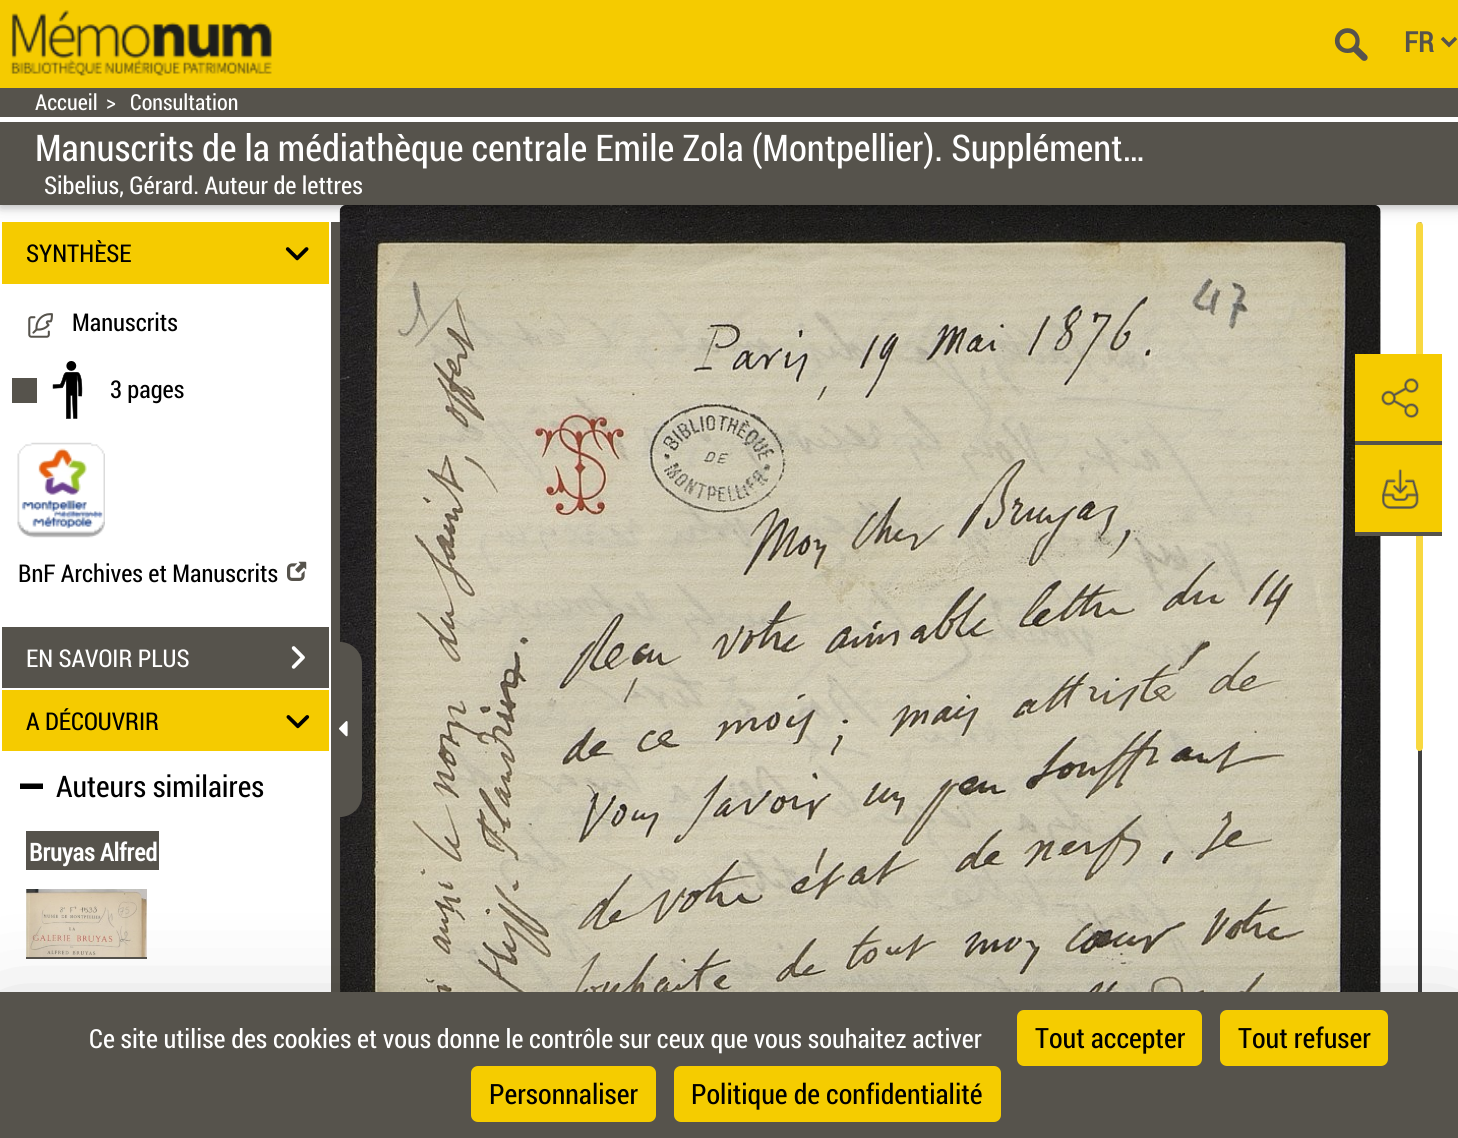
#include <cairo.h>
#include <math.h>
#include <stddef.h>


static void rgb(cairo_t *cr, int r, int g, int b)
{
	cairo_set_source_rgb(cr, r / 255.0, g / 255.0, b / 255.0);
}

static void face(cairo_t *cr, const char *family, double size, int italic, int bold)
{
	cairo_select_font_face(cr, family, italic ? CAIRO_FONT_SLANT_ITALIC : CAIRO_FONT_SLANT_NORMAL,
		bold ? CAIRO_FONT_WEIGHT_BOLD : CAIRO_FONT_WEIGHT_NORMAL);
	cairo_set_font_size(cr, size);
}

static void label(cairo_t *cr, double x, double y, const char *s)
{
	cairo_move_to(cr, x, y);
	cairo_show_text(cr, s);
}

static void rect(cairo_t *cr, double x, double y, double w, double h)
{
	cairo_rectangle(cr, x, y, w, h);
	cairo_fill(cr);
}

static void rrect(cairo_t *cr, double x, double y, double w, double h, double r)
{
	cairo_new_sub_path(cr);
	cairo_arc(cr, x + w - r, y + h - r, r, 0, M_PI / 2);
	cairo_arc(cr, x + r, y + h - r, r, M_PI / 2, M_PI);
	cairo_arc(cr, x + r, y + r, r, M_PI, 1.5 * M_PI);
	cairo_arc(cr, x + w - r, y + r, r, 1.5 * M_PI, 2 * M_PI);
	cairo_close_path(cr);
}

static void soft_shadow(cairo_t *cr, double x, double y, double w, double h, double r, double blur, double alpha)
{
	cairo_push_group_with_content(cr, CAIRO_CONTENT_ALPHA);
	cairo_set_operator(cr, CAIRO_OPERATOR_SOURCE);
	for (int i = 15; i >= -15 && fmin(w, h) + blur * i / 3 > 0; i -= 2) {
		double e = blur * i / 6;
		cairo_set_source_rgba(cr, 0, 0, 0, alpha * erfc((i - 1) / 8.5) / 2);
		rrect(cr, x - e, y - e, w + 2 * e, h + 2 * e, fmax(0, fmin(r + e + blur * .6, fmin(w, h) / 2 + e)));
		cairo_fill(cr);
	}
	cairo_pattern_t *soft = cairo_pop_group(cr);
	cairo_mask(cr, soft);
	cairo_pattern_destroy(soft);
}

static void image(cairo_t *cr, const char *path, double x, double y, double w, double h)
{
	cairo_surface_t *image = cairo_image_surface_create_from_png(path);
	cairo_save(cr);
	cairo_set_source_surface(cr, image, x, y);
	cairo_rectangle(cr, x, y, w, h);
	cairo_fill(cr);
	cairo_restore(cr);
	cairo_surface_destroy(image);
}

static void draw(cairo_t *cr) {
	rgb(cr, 255, 255, 255);
	cairo_paint(cr);
	image(cr, "image11.png", 339, 205, 1042, 787);
	rgb(cr, 64, 64, 64);
	rrect(cr, 1418, 222, 4, 900, 2);
	cairo_fill(cr);
	rgb(cr, 248, 216, 64);
	rrect(cr, 1416, 222, 7, 529, 3.5);
	cairo_fill(cr);
	rgb(cr, 0, 0, 0);
	soft_shadow(cr, 0, 91, 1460, 117, 0, 9, 0.12);
	soft_shadow(cr, 0, 91, 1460, 117, 0, 3.5, 0.16);
	rgb(cr, 245, 203, 0);
	rect(cr, 0, 0, 1458, 88);
	image(cr, "image0.png", 10, 10, 262, 66);
	image(cr, "image1.png", 1334, 28, 34, 33);
	cairo_new_path(cr);
	cairo_move_to(cr, 1442, 38);
	cairo_line_to(cr, 1449, 45);
	cairo_line_to(cr, 1456, 38);
	rgb(cr, 86, 83, 76);
	cairo_set_line_width(cr, 3.5);
	cairo_stroke(cr);
	face(cr, "Roboto Condensed", 28, 0, 1);
	label(cr, 1404, 52, "FR");
	rect(cr, 0, 88, 1458, 117);
	rgb(cr, 255, 255, 255);
	rect(cr, 0, 117, 1458, 5);
	face(cr, "Roboto Condensed", 22, 0, 0);
	label(cr, 35, 110, "Accueil");
	label(cr, 106, 110, ">");
	label(cr, 130, 110, "Consultation");
	face(cr, "Roboto Condensed", 36.75, 0, 0);
	label(cr, 35, 161, "Manuscrits de la médiathèque centrale Emile Zola (Montpellier). Supplément…");
	face(cr, "Roboto Condensed", 24.5, 0, 0);
	label(cr, 44, 194, "Sibelius, Gérard. Auteur de lettres");
	rgb(cr, 86, 83, 76);
	rect(cr, 331, 222, 9, 770);
	rgb(cr, 245, 203, 0);
	rect(cr, 2, 222, 327, 62);
	rgb(cr, 0, 0, 0);
	label(cr, 26, 262, "SYNTHÈSE");
	image(cr, "image2.png", 285, 247, 24, 14);
	image(cr, "image3.png", 28, 313, 25, 25);
	label(cr, 72, 331, "Manuscrits");
	rgb(cr, 86, 83, 76);
	rect(cr, 12, 378, 25, 25);
	image(cr, "image4.png", 52, 361, 31, 58);
	rgb(cr, 0, 0, 0);
	label(cr, 110, 398, "3 pages");
	image(cr, "image5.png", 17, 442, 88, 96);
	label(cr, 18, 582, "BnF Archives et Manuscrits");
	image(cr, "image6.png", 287, 561, 20, 20);
	rgb(cr, 86, 83, 76);
	rect(cr, 2, 627, 327, 61);
	rgb(cr, 255, 255, 255);
	label(cr, 26, 667, "EN SAVOIR PLUS");
	image(cr, "image7.png", 291, 646, 14, 23);
	rgb(cr, 245, 203, 0);
	rect(cr, 2, 690, 327, 61);
	rgb(cr, 0, 0, 0);
	label(cr, 26, 730, "A DÉCOUVRIR");
	image(cr, "image8.png", 286, 715, 24, 14);
	face(cr, "Roboto Condensed", 29.75, 0, 0);
	label(cr, 56, 797, "Auteurs similaires");
	cairo_new_path(cr);
	cairo_move_to(cr, 28.5, 789);
	cairo_line_to(cr, 20, 789);
	cairo_line_to(cr, 20, 783.5);
	cairo_line_to(cr, 43, 783.5);
	cairo_line_to(cr, 43, 789);
	cairo_close_path(cr);
	cairo_fill(cr);
	rgb(cr, 86, 83, 76);
	rect(cr, 26, 831, 133, 39);
	face(cr, "Roboto Condensed", 24.5, 0, 1);
	rgb(cr, 255, 255, 255);
	label(cr, 29, 861, "Bruyas Alfred");
	image(cr, "image9.png", 26, 889, 121, 68);
	rgb(cr, 86, 83, 76);
	rect(cr, 26, 957, 121, 2);
	cairo_new_path(cr);
	cairo_move_to(cr, 341, 643);
	cairo_line_to(cr, 340, 643);
	cairo_curve_to(cr, 351.5, 643, 361, 652.5, 361, 664);
	cairo_line_to(cr, 361, 795);
	cairo_curve_to(cr, 361, 806.5, 351.5, 816, 340, 816);
	cairo_line_to(cr, 341, 816);
	cairo_close_path(cr);
	cairo_fill_preserve(cr);
	cairo_set_line_width(cr, 2);
	cairo_stroke(cr);
	image(cr, "image10.png", 338, 721, 10, 16);
	rgb(cr, 245, 203, 0);
	rect(cr, 1355, 354, 87, 87);
	image(cr, "image12.png", 1381, 378, 38, 40);
	rgb(cr, 86, 83, 76);
	rect(cr, 1355, 441, 87, 4);
	rgb(cr, 245, 203, 0);
	rect(cr, 1355, 445, 87, 87);
	image(cr, "image13.png", 1382, 469, 37, 40);
	rgb(cr, 86, 83, 76);
	rect(cr, 1355, 532, 87, 4);
	rgb(cr, 0, 0, 0);
	soft_shadow(cr, 0, 1027, 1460, 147, 0, 52.5, 0.25);
	rgb(cr, 86, 83, 76);
	rect(cr, 0, 992, 1458, 146);
	face(cr, "Roboto Condensed", 26.25, 0, 0);
	rgb(cr, 255, 255, 255);
	label(cr, 89, 1048, "Ce site utilise des cookies et vous donne le contrôle sur ceux que vous souhaitez activer");
	rgb(cr, 245, 204, 0);
	rrect(cr, 1017, 1010, 185, 56, 7);
	cairo_fill(cr);
	face(cr, "Roboto Condensed", 28, 0, 0);
	rgb(cr, 0, 0, 0);
	label(cr, 1035, 1048, "Tout accepter");
	rgb(cr, 245, 204, 0);
	rrect(cr, 1220, 1010, 168, 56, 7);
	cairo_fill(cr);
	rgb(cr, 0, 0, 0);
	label(cr, 1238, 1048, "Tout refuser");
	rgb(cr, 245, 204, 0);
	rrect(cr, 471, 1066, 185, 56, 7);
	cairo_fill(cr);
	rgb(cr, 0, 0, 0);
	label(cr, 489, 1104, "Personnaliser");
	rgb(cr, 245, 204, 0);
	rrect(cr, 674, 1066, 327, 56, 7);
	cairo_fill(cr);
	rgb(cr, 0, 0, 0);
	label(cr, 691, 1104, "Politique de confidentialité");
}

int main(void) {
	cairo_surface_t *surface = cairo_image_surface_create(CAIRO_FORMAT_RGB24, 1458, 1138);
	cairo_t *cr = cairo_create(surface);
	cairo_font_options_t *options = cairo_font_options_create();
	cairo_font_options_set_hint_metrics(options, CAIRO_HINT_METRICS_OFF);
	cairo_font_options_set_hint_style(options, CAIRO_HINT_STYLE_NONE);
	cairo_set_font_options(cr, options);
	cairo_set_miter_limit(cr, 4);
	draw(cr);
	cairo_surface_write_to_png(surface, "render.png");
	cairo_font_options_destroy(options);
	cairo_destroy(cr);
	cairo_surface_destroy(surface);
	return 0;
}
